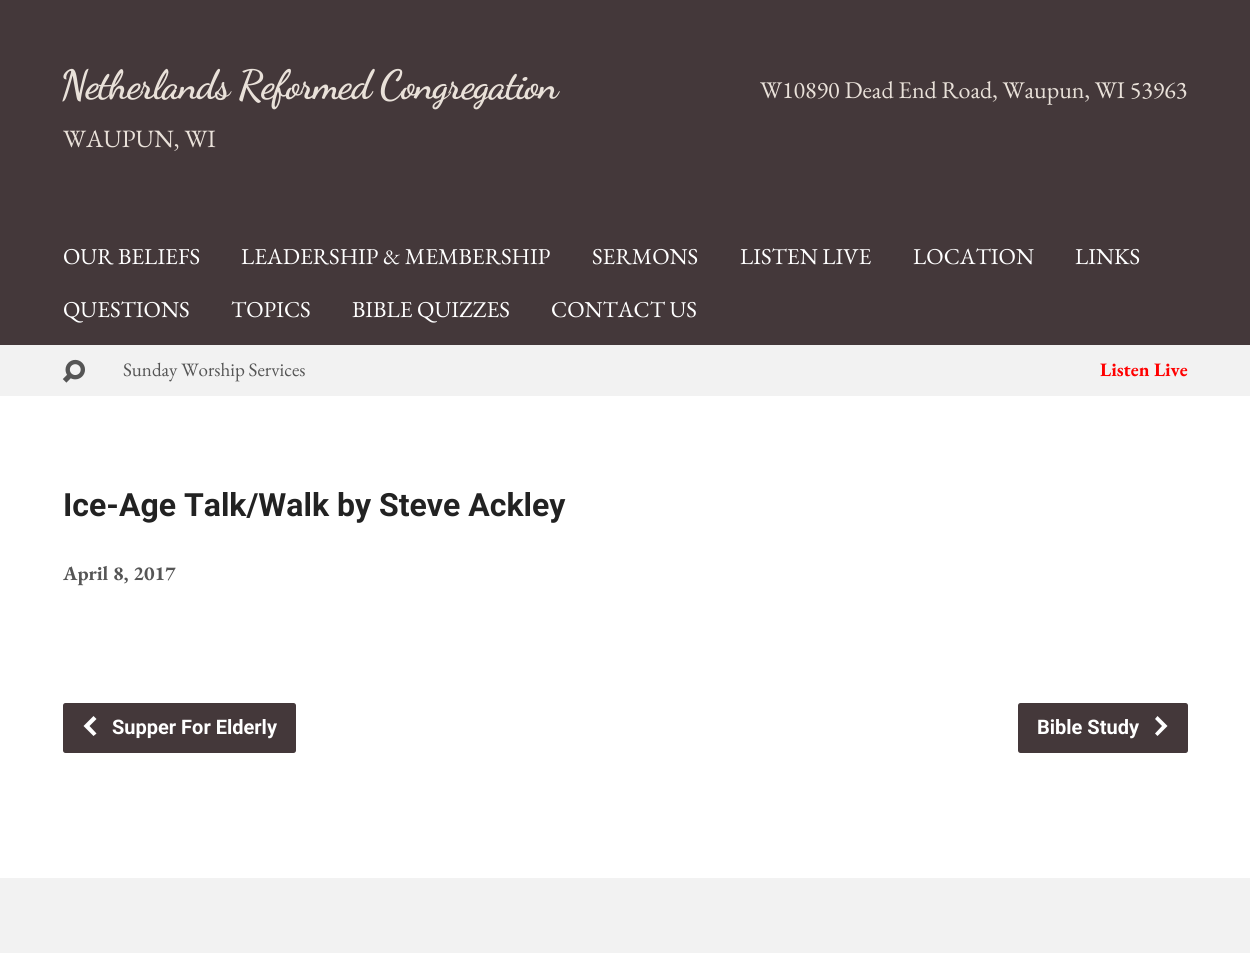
#include <cairo.h>
#include <math.h>
#include <stddef.h>


static void rgb(cairo_t *cr, int r, int g, int b)
{
	cairo_set_source_rgb(cr, r / 255.0, g / 255.0, b / 255.0);
}

static void face(cairo_t *cr, const char *family, double size, int italic, int bold)
{
	cairo_select_font_face(cr, family, italic ? CAIRO_FONT_SLANT_ITALIC : CAIRO_FONT_SLANT_NORMAL,
		bold ? CAIRO_FONT_WEIGHT_BOLD : CAIRO_FONT_WEIGHT_NORMAL);
	cairo_set_font_size(cr, size);
}

static void label(cairo_t *cr, double x, double y, const char *s)
{
	cairo_move_to(cr, x, y);
	cairo_show_text(cr, s);
}

static void tracked(cairo_t *cr, double x, double y, const char *s, double letter, double word)
{
	cairo_move_to(cr, x, y);
	while (*s) {
		char ch[5] = {0};
		int n = 0;
		do ch[n++] = *s++; while ((*s & 0xC0) == 0x80);
		cairo_show_text(cr, ch);
		cairo_rel_move_to(cr, letter + word * (*ch == ' '), 0);
	}
}

static void rect(cairo_t *cr, double x, double y, double w, double h)
{
	cairo_rectangle(cr, x, y, w, h);
	cairo_fill(cr);
}

static void rrect(cairo_t *cr, double x, double y, double w, double h, double r)
{
	cairo_new_sub_path(cr);
	cairo_arc(cr, x + w - r, y + h - r, r, 0, M_PI / 2);
	cairo_arc(cr, x + r, y + h - r, r, M_PI / 2, M_PI);
	cairo_arc(cr, x + r, y + r, r, M_PI, 1.5 * M_PI);
	cairo_arc(cr, x + w - r, y + r, r, 1.5 * M_PI, 2 * M_PI);
	cairo_close_path(cr);
}

static void image(cairo_t *cr, const char *path, double x, double y, double w, double h)
{
	cairo_surface_t *image = cairo_image_surface_create_from_png(path);
	cairo_save(cr);
	cairo_set_source_surface(cr, image, x, y);
	cairo_rectangle(cr, x, y, w, h);
	cairo_fill(cr);
	cairo_restore(cr);
	cairo_surface_destroy(image);
}

static void draw(cairo_t *cr) {
	rgb(cr, 255, 255, 255);
	cairo_paint(cr);
	rgb(cr, 68, 56, 58);
	rect(cr, 0, 0, 1250, 345);
	face(cr, "Dancing Script", 40.5, 0, 1);
	rgb(cr, 233, 225, 217);
	tracked(cr, 60, 98, "Netherlands Reformed Congregation", -1.25, 0);
	face(cr, "EB Garamond", 25, 0, 0);
	label(cr, 63, 147, "WAUPUN, WI");
	face(cr, "EB Garamond", 24, 0, 0);
	label(cr, 760, 98, "W10890 Dead End Road, Waupun, WI 53963");
	face(cr, "EB Garamond", 22.75, 0, 0);
	rgb(cr, 255, 255, 255);
	label(cr, 63, 264, "OUR BELIEFS");
	label(cr, 241, 264, "LEADERSHIP & MEMBERSHIP");
	label(cr, 592, 264, "SERMONS");
	label(cr, 740, 264, "LISTEN LIVE");
	label(cr, 913, 264, "LOCATION");
	label(cr, 1075, 264, "LINKS");
	label(cr, 63, 317, "QUESTIONS");
	label(cr, 231, 317, "TOPICS");
	label(cr, 352, 317, "BIBLE QUIZZES");
	label(cr, 551, 317, "CONTACT US");
	rgb(cr, 242, 242, 242);
	rect(cr, 0, 345, 1250, 51);
	image(cr, "image0.png", 62, 359, 23, 24);
	face(cr, "EB Garamond", 19, 0, 0);
	rgb(cr, 85, 85, 85);
	label(cr, 123, 376, "Sunday Worship Services");
	face(cr, "EB Garamond", 19, 0, 1);
	rgb(cr, 255, 0, 0);
	label(cr, 1100, 376, "Listen Live");
	face(cr, "Roboto", 32, 0, 1);
	rgb(cr, 34, 34, 34);
	label(cr, 63, 516, "Ice-Age Talk/Walk by Steve Ackley");
	face(cr, "EB Garamond", 20, 0, 1);
	rgb(cr, 85, 85, 85);
	label(cr, 63, 580, "April 8, 2017");
	rgb(cr, 68, 56, 58);
	rrect(cr, 63, 703, 233, 50, 2.5);
	cairo_fill(cr);
	rgb(cr, 255, 255, 255);
	cairo_new_path(cr);
	cairo_move_to(cr, 83.5, 726);
	cairo_line_to(cr, 93.5, 736);
	cairo_line_to(cr, 96.5, 733.5);
	cairo_line_to(cr, 89.5, 726);
	cairo_line_to(cr, 96.5, 719);
	cairo_line_to(cr, 93.5, 716);
	cairo_close_path(cr);
	cairo_fill(cr);
	face(cr, "Roboto", 20, 0, 1);
	label(cr, 112, 734, "Supper For Elderly");
	rgb(cr, 68, 56, 58);
	rrect(cr, 1018, 703, 170, 50, 2.5);
	cairo_fill(cr);
	rgb(cr, 255, 255, 255);
	label(cr, 1037, 734, "Bible Study");
	cairo_new_path(cr);
	cairo_move_to(cr, 1167.5, 726);
	cairo_line_to(cr, 1157.5, 716);
	cairo_line_to(cr, 1155, 719);
	cairo_line_to(cr, 1162, 726);
	cairo_line_to(cr, 1155, 733.5);
	cairo_line_to(cr, 1157.5, 736);
	cairo_close_path(cr);
	cairo_fill(cr);
	rgb(cr, 242, 242, 242);
	rect(cr, 0, 878, 1250, 75);
}

int main(void) {
	cairo_surface_t *surface = cairo_image_surface_create(CAIRO_FORMAT_RGB24, 1250, 953);
	cairo_t *cr = cairo_create(surface);
	cairo_font_options_t *options = cairo_font_options_create();
	cairo_font_options_set_hint_metrics(options, CAIRO_HINT_METRICS_OFF);
	cairo_font_options_set_hint_style(options, CAIRO_HINT_STYLE_NONE);
	cairo_set_font_options(cr, options);
	cairo_set_miter_limit(cr, 4);
	draw(cr);
	cairo_surface_write_to_png(surface, "render.png");
	cairo_font_options_destroy(options);
	cairo_destroy(cr);
	cairo_surface_destroy(surface);
	return 0;
}
